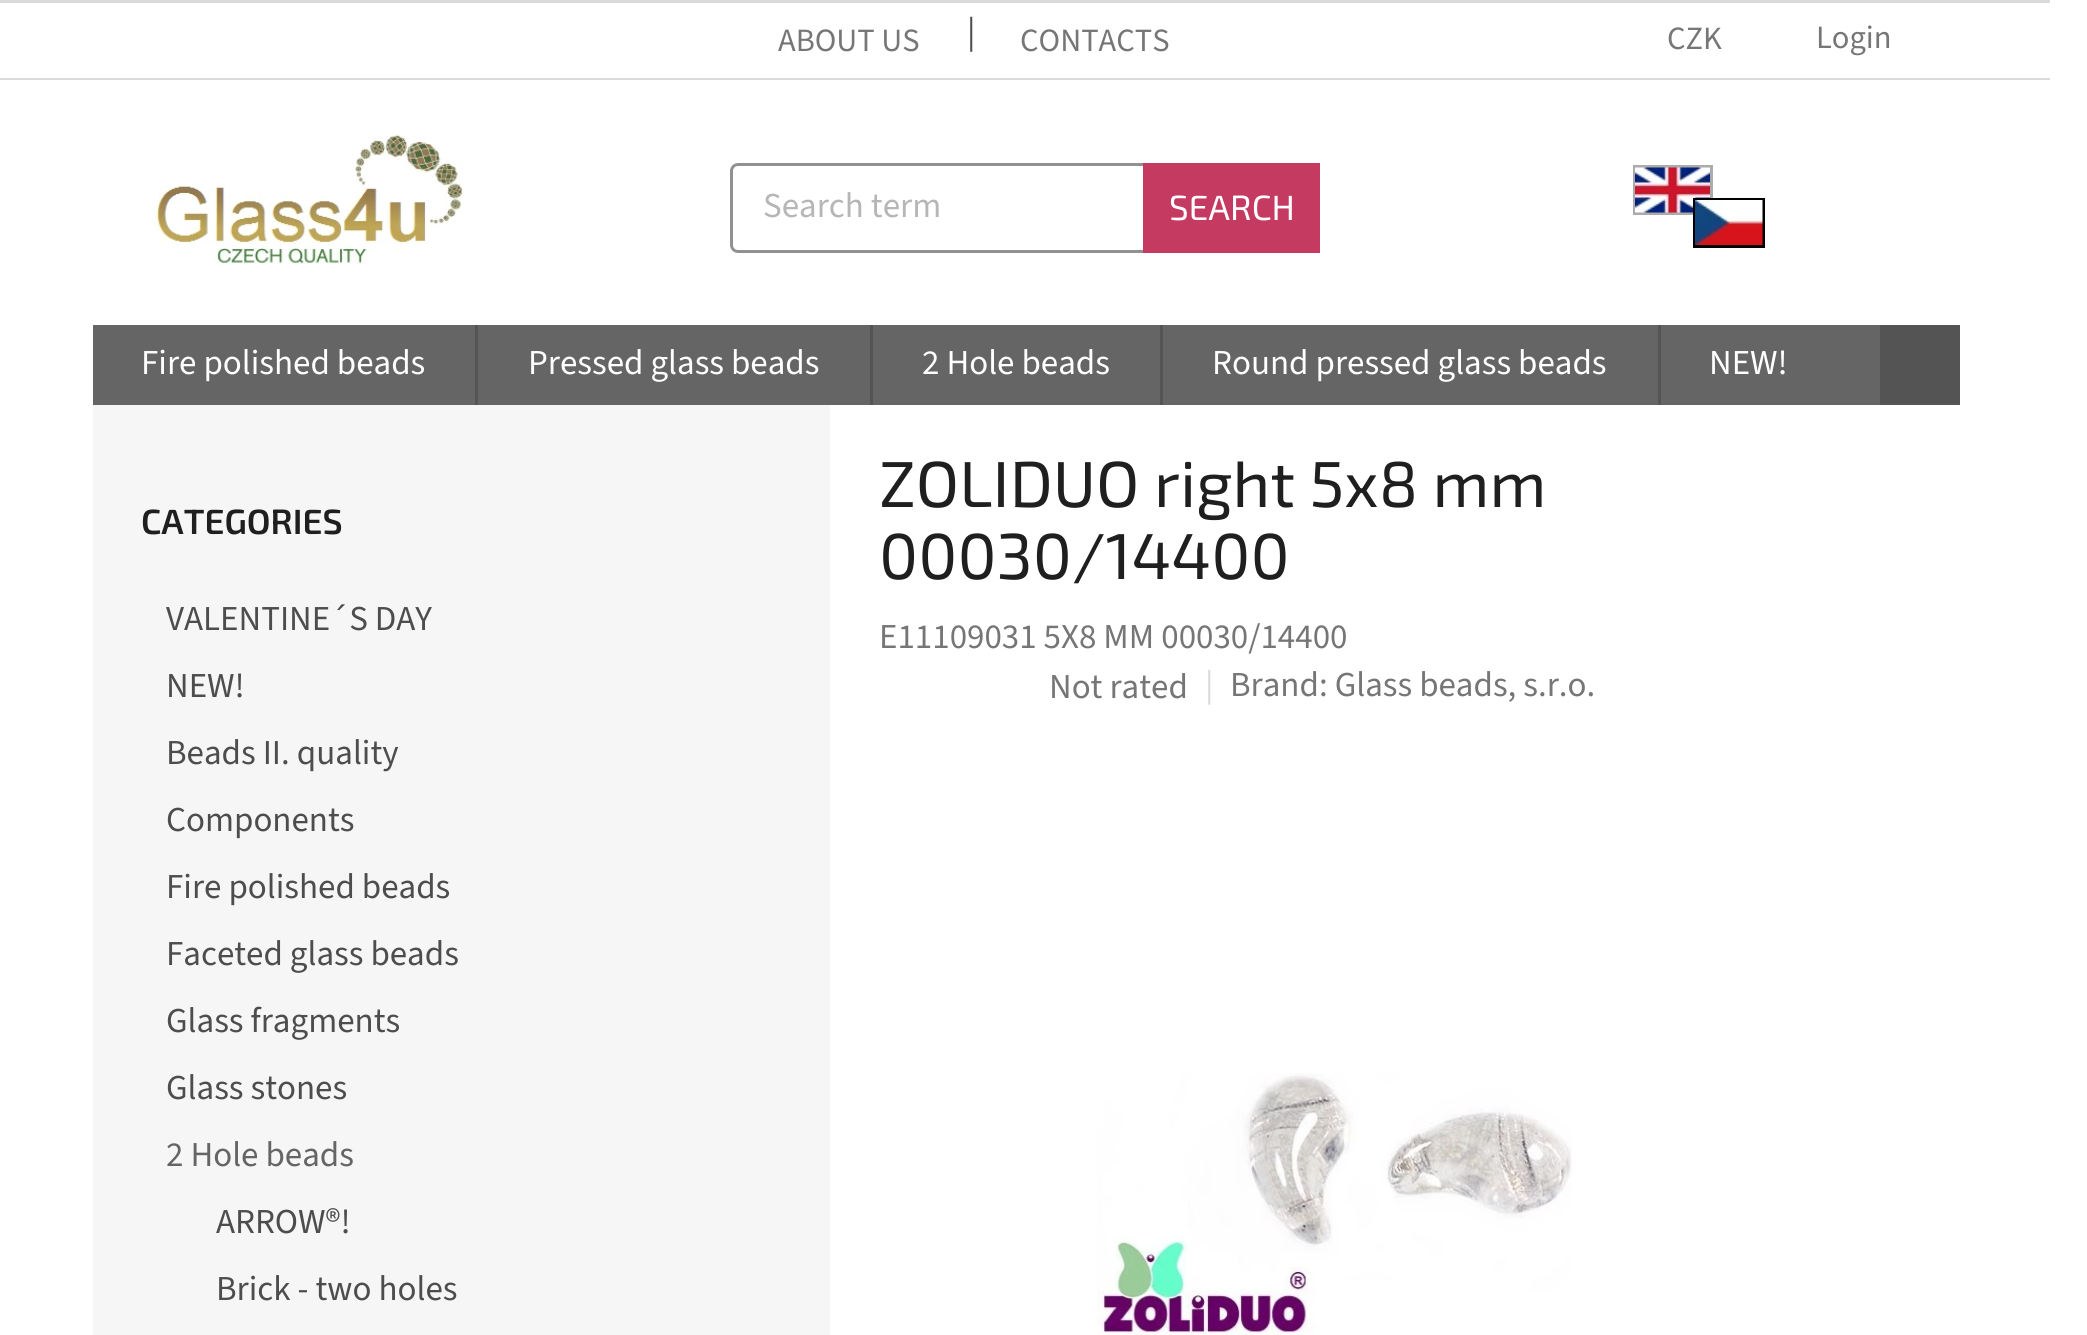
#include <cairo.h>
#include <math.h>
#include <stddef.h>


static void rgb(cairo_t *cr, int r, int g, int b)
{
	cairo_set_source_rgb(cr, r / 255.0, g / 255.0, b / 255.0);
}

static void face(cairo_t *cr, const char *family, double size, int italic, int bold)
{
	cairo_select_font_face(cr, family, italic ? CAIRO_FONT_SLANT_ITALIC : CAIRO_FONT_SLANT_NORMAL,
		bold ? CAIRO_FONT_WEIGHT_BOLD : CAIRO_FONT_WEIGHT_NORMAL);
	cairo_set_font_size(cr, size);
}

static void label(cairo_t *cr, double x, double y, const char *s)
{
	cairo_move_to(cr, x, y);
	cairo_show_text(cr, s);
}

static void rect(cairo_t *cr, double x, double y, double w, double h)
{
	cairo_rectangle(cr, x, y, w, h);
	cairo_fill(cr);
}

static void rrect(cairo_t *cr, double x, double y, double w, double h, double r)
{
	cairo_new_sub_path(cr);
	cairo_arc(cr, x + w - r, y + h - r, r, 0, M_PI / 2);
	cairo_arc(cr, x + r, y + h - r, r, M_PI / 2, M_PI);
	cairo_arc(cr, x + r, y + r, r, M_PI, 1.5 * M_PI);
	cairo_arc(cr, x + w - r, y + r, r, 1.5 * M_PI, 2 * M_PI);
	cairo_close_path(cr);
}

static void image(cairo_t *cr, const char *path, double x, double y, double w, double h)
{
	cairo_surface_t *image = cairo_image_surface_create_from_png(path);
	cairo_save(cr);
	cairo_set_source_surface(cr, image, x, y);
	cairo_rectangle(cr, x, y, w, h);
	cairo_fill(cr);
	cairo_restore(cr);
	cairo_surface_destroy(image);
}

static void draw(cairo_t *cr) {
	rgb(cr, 255, 255, 255);
	cairo_paint(cr);
	rgb(cr, 218, 218, 218);
	rect(cr, 0, 0, 2050, 3);
	rect(cr, 0, 78, 2050, 2);
	face(cr, "Source Sans 3", 32.5, 0, 0);
	rgb(cr, 118, 118, 118);
	label(cr, 778, 51, "ABOUT US");
	face(cr, "Source Sans 3", 35, 0, 0);
	rgb(cr, 77, 77, 77);
	label(cr, 967, 43, "|");
	face(cr, "Source Sans 3", 32.5, 0, 0);
	rgb(cr, 118, 118, 118);
	label(cr, 1020, 51, "CONTACTS");
	label(cr, 1667, 49, "CZK");
	label(cr, 1816, 48, "Login");
	image(cr, "image0.png", 151, 134, 312, 130);
	rrect(cr, 731.5, 164.5, 587, 87, 6.5);
	rgb(cr, 145, 145, 145);
	cairo_set_line_width(cr, 3);
	cairo_stroke(cr);
	face(cr, "Source Sans 3", 35, 0, 0);
	rgb(cr, 182, 182, 182);
	label(cr, 763, 217, "Search term");
	rgb(cr, 196, 58, 97);
	rect(cr, 1143, 163, 177, 90);
	face(cr, "Exo 2", 35, 0, 0);
	rgb(cr, 255, 255, 255);
	label(cr, 1169, 220, "SEARCH");
	cairo_rectangle(cr, 1634.5, 166.5, 77, 47);
	rgb(cr, 171, 171, 171);
	cairo_stroke(cr);
	image(cr, "image1.png", 1635, 167, 75, 46);
	cairo_rectangle(cr, 1694.5, 199.5, 69, 47);
	rgb(cr, 0, 0, 0);
	cairo_stroke(cr);
	image(cr, "image2.png", 1695, 200, 68, 45);
	rgb(cr, 101, 101, 101);
	rect(cr, 93, 325, 1787, 80);
	face(cr, "Source Sans 3", 35, 0, 0);
	rgb(cr, 255, 255, 255);
	label(cr, 141, 374, "Fire polished beads");
	rgb(cr, 84, 84, 84);
	rect(cr, 475, 325, 3, 80);
	rgb(cr, 255, 255, 255);
	label(cr, 528, 374, "Pressed glass beads");
	rgb(cr, 84, 84, 84);
	rect(cr, 870, 325, 3, 80);
	rgb(cr, 255, 255, 255);
	label(cr, 922, 374, "2 Hole beads");
	rgb(cr, 84, 84, 84);
	rect(cr, 1160, 325, 3, 80);
	rgb(cr, 255, 255, 255);
	label(cr, 1212, 374, "Round pressed glass beads");
	rgb(cr, 84, 84, 84);
	rect(cr, 1658, 325, 3, 80);
	rgb(cr, 255, 255, 255);
	label(cr, 1709, 374, "NEW!");
	rgb(cr, 84, 84, 84);
	rect(cr, 1880, 325, 80, 80);
	rgb(cr, 246, 246, 246);
	rect(cr, 93, 405, 737, 930);
	face(cr, "Exo 2 SemiBold", 35, 0, 0);
	rgb(cr, 31, 31, 31);
	label(cr, 141, 534, "CATEGORIES");
	face(cr, "Source Sans 3", 35, 0, 0);
	rgb(cr, 77, 77, 77);
	label(cr, 166, 630, "VALENTINE´S DAY");
	label(cr, 166, 697, "NEW!");
	label(cr, 166, 764, "Beads II. quality");
	label(cr, 166, 831, "Components");
	label(cr, 166, 898, "Fire polished beads");
	label(cr, 166, 965, "Faceted glass beads");
	label(cr, 166, 1032, "Glass fragments");
	label(cr, 166, 1099, "Glass stones");
	rgb(cr, 101, 101, 101);
	label(cr, 166, 1166, "2 Hole beads");
	rgb(cr, 77, 77, 77);
	label(cr, 216, 1233, "ARROW®!");
	label(cr, 216, 1300, "Brick - two holes");
	face(cr, "Exo 2", 65, 0, 0);
	rgb(cr, 31, 31, 31);
	label(cr, 879, 507, "ZOLIDUO right 5x8 mm");
	label(cr, 879, 579, "00030/14400");
	face(cr, "Source Sans 3", 35, 0, 0);
	rgb(cr, 118, 118, 118);
	label(cr, 879, 648, "E11109031 5X8 MM 00030/14400");
	label(cr, 1049, 698, "Not rated");
	rgb(cr, 218, 218, 218);
	label(cr, 1205, 696, "|");
	rgb(cr, 118, 118, 118);
	label(cr, 1230, 696, "Brand: Glass beads, s.r.o.");
	image(cr, "image3.png", 1097, 1073, 475, 262);
}

int main(void) {
	cairo_surface_t *surface = cairo_image_surface_create(CAIRO_FORMAT_RGB24, 2087, 1335);
	cairo_t *cr = cairo_create(surface);
	cairo_font_options_t *options = cairo_font_options_create();
	cairo_font_options_set_hint_metrics(options, CAIRO_HINT_METRICS_OFF);
	cairo_font_options_set_hint_style(options, CAIRO_HINT_STYLE_NONE);
	cairo_set_font_options(cr, options);
	cairo_set_miter_limit(cr, 4);
	draw(cr);
	cairo_surface_write_to_png(surface, "render.png");
	cairo_font_options_destroy(options);
	cairo_destroy(cr);
	cairo_surface_destroy(surface);
	return 0;
}
